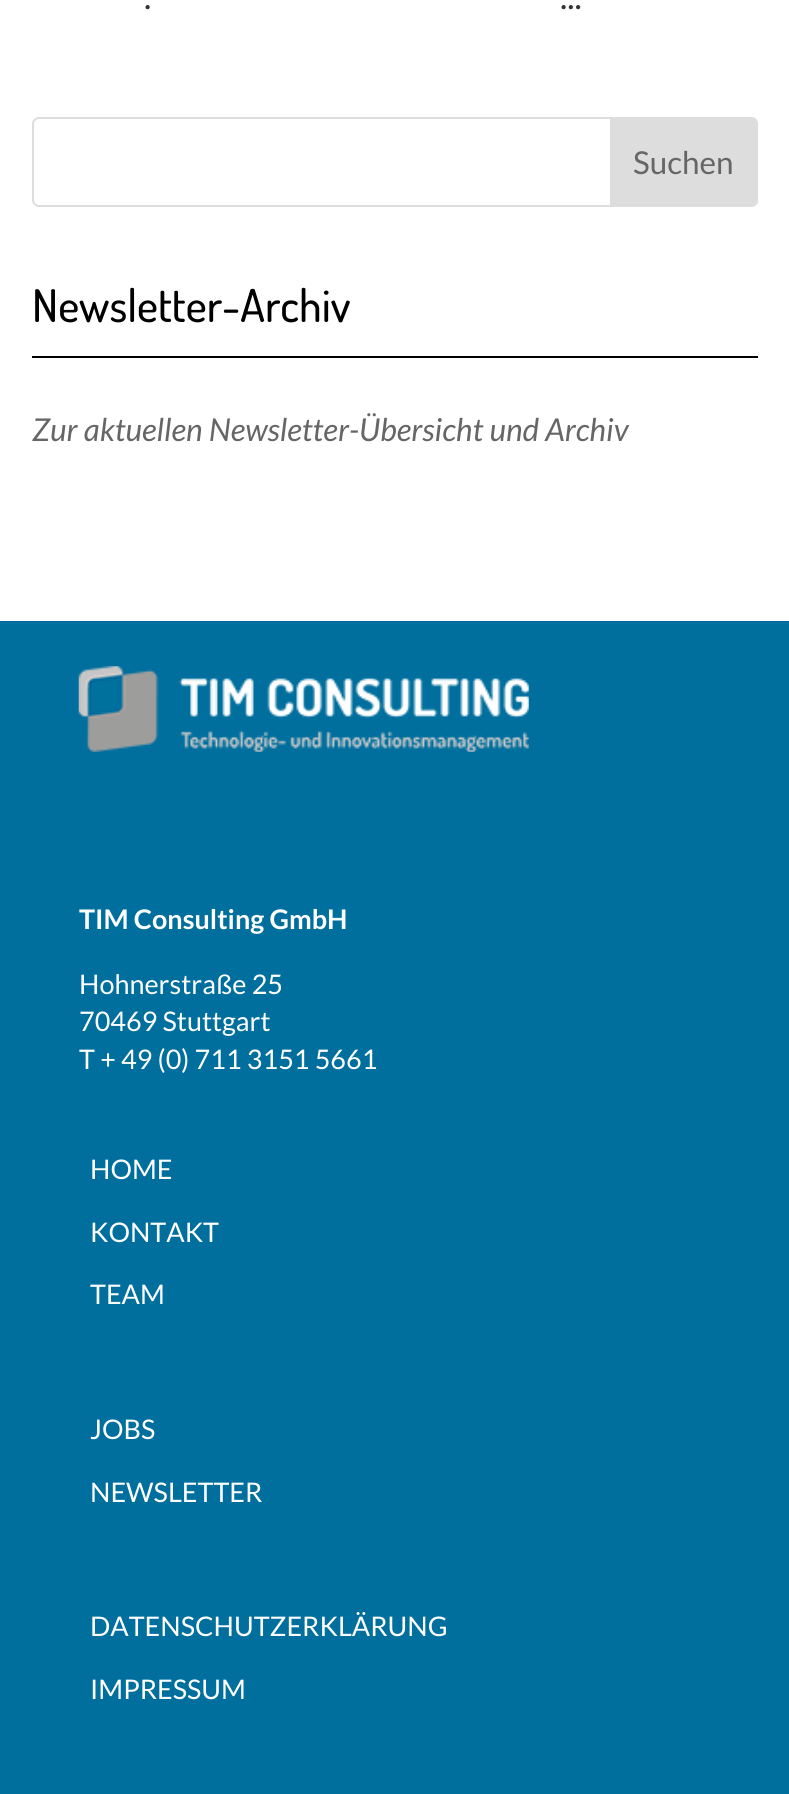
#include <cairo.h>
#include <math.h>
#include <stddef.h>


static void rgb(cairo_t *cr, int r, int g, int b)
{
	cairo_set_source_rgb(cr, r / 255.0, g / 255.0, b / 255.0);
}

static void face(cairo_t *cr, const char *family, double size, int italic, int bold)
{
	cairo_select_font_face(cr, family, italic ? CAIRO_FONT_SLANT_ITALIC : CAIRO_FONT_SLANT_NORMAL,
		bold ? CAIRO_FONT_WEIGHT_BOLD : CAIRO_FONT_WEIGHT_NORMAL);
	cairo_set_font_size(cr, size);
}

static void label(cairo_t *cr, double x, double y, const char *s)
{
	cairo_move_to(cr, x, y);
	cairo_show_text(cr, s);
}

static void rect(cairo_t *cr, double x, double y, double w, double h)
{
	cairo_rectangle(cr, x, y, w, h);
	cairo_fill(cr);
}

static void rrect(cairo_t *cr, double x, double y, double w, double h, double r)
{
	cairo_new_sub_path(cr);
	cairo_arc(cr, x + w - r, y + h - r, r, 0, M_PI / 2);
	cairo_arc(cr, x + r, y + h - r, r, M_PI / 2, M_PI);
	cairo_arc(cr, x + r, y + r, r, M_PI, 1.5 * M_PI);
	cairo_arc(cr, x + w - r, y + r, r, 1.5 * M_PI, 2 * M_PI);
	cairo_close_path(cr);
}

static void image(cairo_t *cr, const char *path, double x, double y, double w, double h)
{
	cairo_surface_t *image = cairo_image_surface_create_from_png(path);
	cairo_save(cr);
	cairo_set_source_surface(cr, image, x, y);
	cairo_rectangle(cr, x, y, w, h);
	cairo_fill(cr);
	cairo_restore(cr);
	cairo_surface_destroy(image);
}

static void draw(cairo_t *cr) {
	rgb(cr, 255, 255, 255);
	cairo_paint(cr);
	face(cr, "Lato", 34, 0, 0);
	rgb(cr, 51, 51, 51);
	label(cr, 144, 9, ".");
	label(cr, 560, 9, "...");
	rrect(cr, 33, 118, 724, 88, 6);
	rgb(cr, 221, 221, 221);
	cairo_stroke(cr);
	cairo_new_path(cr);
	cairo_move_to(cr, 611, 118);
	cairo_line_to(cr, 751, 118);
	cairo_curve_to(cr, 754.5, 118, 757, 120.5, 757, 124);
	cairo_line_to(cr, 757, 200);
	cairo_curve_to(cr, 757, 203.5, 754.5, 206, 751, 206);
	cairo_line_to(cr, 611, 206);
	cairo_close_path(cr);
	cairo_fill_preserve(cr);
	cairo_stroke(cr);
	face(cr, "Lato", 31.5, 0, 0);
	rgb(cr, 102, 102, 102);
	label(cr, 633, 174, "Suchen");
	rgb(cr, 0, 0, 0);
	rect(cr, 32, 356, 726, 2);
	face(cr, "Dosis Medium", 45, 0, 0);
	label(cr, 32, 322, "Newsletter-Archiv");
	face(cr, "Lato", 31.5, 1, 0);
	rgb(cr, 102, 102, 102);
	label(cr, 32, 441, "Zur aktuellen Newsletter-Übersicht und Archiv");
	rgb(cr, 0, 111, 158);
	rect(cr, 0, 621, 789, 1173);
	image(cr, "image0.png", 78, 666, 451, 86);
	face(cr, "Lato", 27, 0, 1);
	rgb(cr, 255, 255, 255);
	label(cr, 79, 929, "TIM Consulting GmbH");
	face(cr, "Lato", 27, 0, 0);
	label(cr, 79, 994, "Hohnerstraße 25");
	label(cr, 79, 1031, "70469 Stuttgart");
	label(cr, 79, 1069, "T + 49 (0) 711 3151 5661");
	label(cr, 90, 1179, "HOME");
	label(cr, 90, 1242, "KONTAKT");
	label(cr, 90, 1304, "TEAM");
	label(cr, 90, 1439, "JOBS");
	label(cr, 90, 1502, "NEWSLETTER");
	label(cr, 90, 1636, "DATENSCHUTZERKLÄRUNG");
	label(cr, 90, 1699, "IMPRESSUM");
}

int main(void) {
	cairo_surface_t *surface = cairo_image_surface_create(CAIRO_FORMAT_RGB24, 789, 1794);
	cairo_t *cr = cairo_create(surface);
	cairo_font_options_t *options = cairo_font_options_create();
	cairo_font_options_set_hint_metrics(options, CAIRO_HINT_METRICS_OFF);
	cairo_font_options_set_hint_style(options, CAIRO_HINT_STYLE_NONE);
	cairo_set_font_options(cr, options);
	cairo_set_miter_limit(cr, 4);
	draw(cr);
	cairo_surface_write_to_png(surface, "render.png");
	cairo_font_options_destroy(options);
	cairo_destroy(cr);
	cairo_surface_destroy(surface);
	return 0;
}
